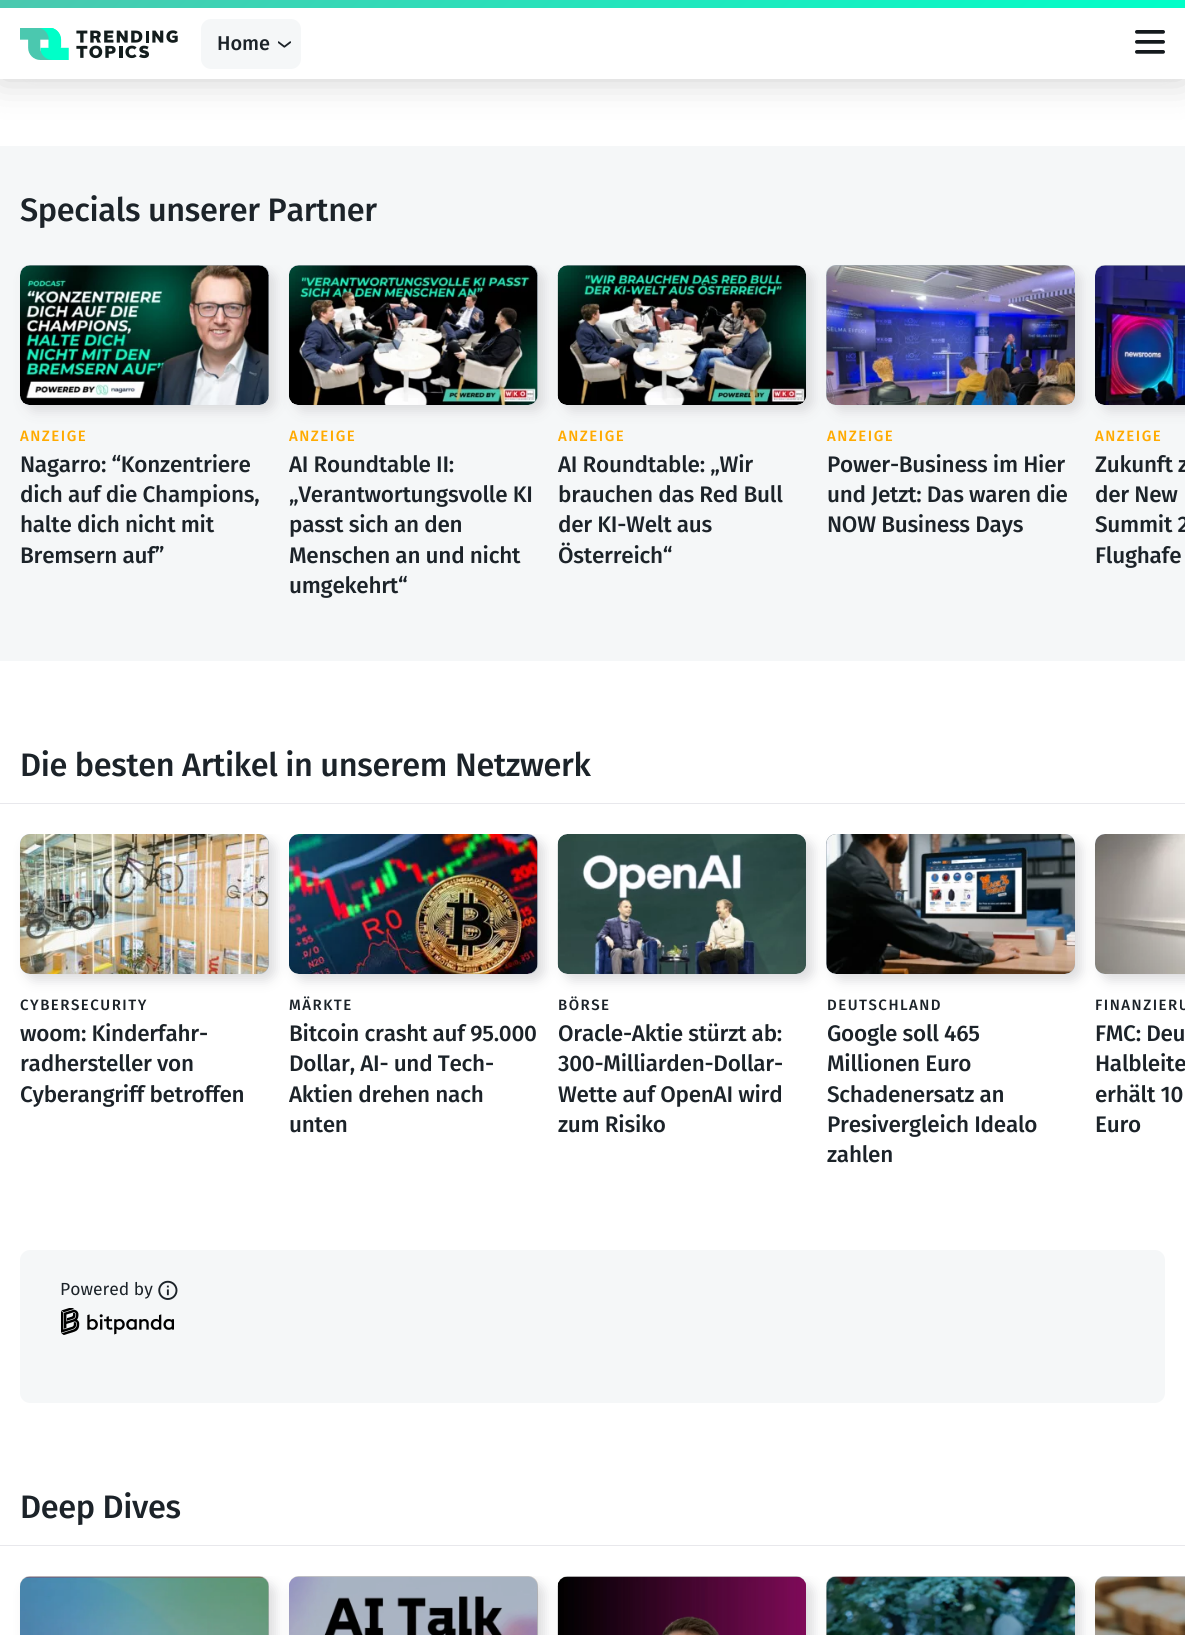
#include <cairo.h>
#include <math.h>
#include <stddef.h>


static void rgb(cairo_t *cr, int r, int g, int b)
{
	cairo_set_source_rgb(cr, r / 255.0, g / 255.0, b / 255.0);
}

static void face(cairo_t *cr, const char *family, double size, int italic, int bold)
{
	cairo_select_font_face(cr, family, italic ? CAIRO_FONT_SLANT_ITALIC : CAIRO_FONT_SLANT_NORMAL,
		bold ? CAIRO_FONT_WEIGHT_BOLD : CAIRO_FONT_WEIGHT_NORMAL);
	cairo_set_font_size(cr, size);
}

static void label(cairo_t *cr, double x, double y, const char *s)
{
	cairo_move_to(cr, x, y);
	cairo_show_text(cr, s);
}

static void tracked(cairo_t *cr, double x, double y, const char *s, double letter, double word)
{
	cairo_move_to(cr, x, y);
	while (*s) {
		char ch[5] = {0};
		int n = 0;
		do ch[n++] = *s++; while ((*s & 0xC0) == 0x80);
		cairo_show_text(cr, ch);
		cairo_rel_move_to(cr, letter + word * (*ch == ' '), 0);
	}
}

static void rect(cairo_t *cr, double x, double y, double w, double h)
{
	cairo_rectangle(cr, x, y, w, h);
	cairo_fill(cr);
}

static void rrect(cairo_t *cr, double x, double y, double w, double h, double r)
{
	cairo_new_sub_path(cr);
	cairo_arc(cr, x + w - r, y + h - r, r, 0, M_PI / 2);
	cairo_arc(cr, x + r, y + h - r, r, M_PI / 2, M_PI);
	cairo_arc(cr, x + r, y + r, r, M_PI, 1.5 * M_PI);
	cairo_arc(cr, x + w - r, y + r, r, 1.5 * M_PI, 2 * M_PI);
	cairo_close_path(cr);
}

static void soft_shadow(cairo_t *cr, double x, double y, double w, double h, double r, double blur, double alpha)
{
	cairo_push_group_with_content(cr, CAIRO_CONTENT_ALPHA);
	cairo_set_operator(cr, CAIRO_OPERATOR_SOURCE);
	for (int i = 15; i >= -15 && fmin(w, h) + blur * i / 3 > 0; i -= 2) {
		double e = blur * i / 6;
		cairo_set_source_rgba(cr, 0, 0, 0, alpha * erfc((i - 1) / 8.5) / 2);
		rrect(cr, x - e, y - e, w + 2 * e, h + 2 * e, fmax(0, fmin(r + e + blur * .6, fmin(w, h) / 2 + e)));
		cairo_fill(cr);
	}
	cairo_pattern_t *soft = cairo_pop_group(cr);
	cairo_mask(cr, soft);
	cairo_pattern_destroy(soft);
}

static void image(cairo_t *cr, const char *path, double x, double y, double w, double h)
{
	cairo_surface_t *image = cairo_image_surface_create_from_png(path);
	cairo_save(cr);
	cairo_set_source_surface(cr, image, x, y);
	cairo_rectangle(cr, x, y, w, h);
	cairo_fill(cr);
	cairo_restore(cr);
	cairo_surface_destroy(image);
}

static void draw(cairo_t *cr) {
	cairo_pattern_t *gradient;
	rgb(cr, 255, 255, 255);
	cairo_paint(cr);
	rgb(cr, 0, 0, 0);
	soft_shadow(cr, 0, 0, 1185, 79, 0, 19, 0.2);
	rgb(cr, 220, 220, 222);
	soft_shadow(cr, 26, -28, 1145, 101, 10, 6, 1);
	rgb(cr, 255, 255, 255);
	rect(cr, 0, 8, 1185, 71);
	gradient = cairo_pattern_create_linear(294, -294, 891, 302);
	cairo_pattern_add_color_stop_rgba(gradient, 0, 0.294, 0.784, 0.686, 1);
	cairo_pattern_add_color_stop_rgba(gradient, 1, 0, 1, 0.784, 1);
	cairo_set_source(cr, gradient);
	cairo_pattern_destroy(gradient);
	rect(cr, 0, 0, 1185, 8);
	image(cr, "image0.png", 20, 28, 158, 32);
	rgb(cr, 245, 247, 248);
	rrect(cr, 201, 19, 100, 50, 10);
	cairo_fill(cr);
	face(cr, "Fira Sans Medium", 20, 0, 0);
	rgb(cr, 28, 35, 41);
	label(cr, 217, 50, "Home");
	image(cr, "image1.png", 278, 41, 13, 7);
	image(cr, "image2.png", 1135, 30, 30, 24);
	rgb(cr, 245, 247, 248);
	rect(cr, 0, 146, 1185, 515);
	face(cr, "Fira Sans Medium", 32.5, 0, 0);
	rgb(cr, 28, 35, 41);
	tracked(cr, 20, 221, "Specials unserer Partner", -0.35, 0);
	cairo_save(cr);
	cairo_rectangle(cr, 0, 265, 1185, 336);
	cairo_clip(cr);
	rgb(cr, 220, 220, 222);
	soft_shadow(cr, 26, 271, 249, 140, 10, 6, 1);
	cairo_restore(cr);
	rgb(cr, 167, 177, 185);
	rrect(cr, 20, 265, 249, 140, 10);
	cairo_fill(cr);
	image(cr, "image3.png", 20, 265, 249, 140);
	face(cr, "Fira Sans Medium", 15, 0, 0);
	rgb(cr, 255, 170, 0);
	tracked(cr, 20, 441, "ANZEIGE", 1.5, 0);
	face(cr, "Fira Sans Medium", 22.5, 0, 0);
	rgb(cr, 28, 35, 41);
	tracked(cr, 20, 472, "Nagarro: “Konzentriere", -0.25, 0);
	tracked(cr, 20, 502, "dich auf die Champions,", -0.25, 0);
	tracked(cr, 20, 532, "halte dich nicht mit", -0.25, 0);
	tracked(cr, 20, 563, "Bremsern auf”", -0.25, 0);
	cairo_save(cr);
	cairo_rectangle(cr, 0, 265, 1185, 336);
	cairo_clip(cr);
	rgb(cr, 220, 220, 222);
	soft_shadow(cr, 295, 271, 249, 140, 10, 6, 1);
	cairo_restore(cr);
	rgb(cr, 167, 177, 185);
	rrect(cr, 289, 265, 249, 140, 10);
	cairo_fill(cr);
	image(cr, "image4.png", 288, 265, 250, 140);
	face(cr, "Fira Sans Medium", 15, 0, 0);
	rgb(cr, 255, 170, 0);
	tracked(cr, 289, 441, "ANZEIGE", 1.5, 0);
	face(cr, "Fira Sans Medium", 22.5, 0, 0);
	rgb(cr, 28, 35, 41);
	tracked(cr, 289, 472, "AI Roundtable II:", -0.25, 0);
	tracked(cr, 289, 502, "„Verantwortungsvolle KI", -0.25, 0);
	tracked(cr, 289, 532, "passt sich an den", -0.25, 0);
	tracked(cr, 289, 563, "Menschen an und nicht", -0.25, 0);
	tracked(cr, 289, 593, "umgekehrt“", -0.25, 0);
	cairo_save(cr);
	cairo_rectangle(cr, 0, 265, 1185, 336);
	cairo_clip(cr);
	rgb(cr, 220, 220, 222);
	soft_shadow(cr, 564, 271, 249, 140, 10, 6, 1);
	cairo_restore(cr);
	rgb(cr, 167, 177, 185);
	rrect(cr, 558, 265, 248, 140, 10);
	cairo_fill(cr);
	image(cr, "image5.png", 557, 265, 250, 140);
	face(cr, "Fira Sans Medium", 15, 0, 0);
	rgb(cr, 255, 170, 0);
	tracked(cr, 558, 441, "ANZEIGE", 1.5, 0);
	face(cr, "Fira Sans Medium", 22.5, 0, 0);
	rgb(cr, 28, 35, 41);
	tracked(cr, 558, 472, "AI Roundtable: „Wir", -0.25, 0);
	tracked(cr, 558, 502, "brauchen das Red Bull", -0.25, 0);
	tracked(cr, 558, 532, "der KI-Welt aus", -0.25, 0);
	tracked(cr, 558, 563, "Österreich“", -0.25, 0);
	cairo_save(cr);
	cairo_rectangle(cr, 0, 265, 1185, 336);
	cairo_clip(cr);
	rgb(cr, 220, 220, 222);
	soft_shadow(cr, 833, 271, 248, 140, 10, 6, 1);
	cairo_restore(cr);
	rgb(cr, 167, 177, 185);
	rrect(cr, 826, 265, 249, 140, 10);
	cairo_fill(cr);
	image(cr, "image6.png", 826, 265, 249, 140);
	face(cr, "Fira Sans Medium", 15, 0, 0);
	rgb(cr, 255, 170, 0);
	tracked(cr, 827, 441, "ANZEIGE", 1.5, 0);
	face(cr, "Fira Sans Medium", 22.5, 0, 0);
	rgb(cr, 28, 35, 41);
	tracked(cr, 827, 472, "Power-Business im Hier", -0.25, 0);
	tracked(cr, 827, 502, "und Jetzt: Das waren die", -0.25, 0);
	tracked(cr, 827, 532, "NOW Business Days", -0.25, 0);
	cairo_save(cr);
	cairo_rectangle(cr, 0, 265, 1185, 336);
	cairo_clip(cr);
	rgb(cr, 220, 220, 222);
	soft_shadow(cr, 1101, 271, 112, 140, 10, 6, 1);
	cairo_restore(cr);
	rgb(cr, 167, 177, 185);
	cairo_new_path(cr);
	cairo_move_to(cr, 1105, 265);
	cairo_line_to(cr, 1185, 265);
	cairo_line_to(cr, 1185, 405);
	cairo_line_to(cr, 1105, 405);
	cairo_curve_to(cr, 1099.5, 405, 1095, 400.5, 1095, 395);
	cairo_line_to(cr, 1095, 275);
	cairo_curve_to(cr, 1095, 269.5, 1099.5, 265, 1105, 265);
	cairo_close_path(cr);
	cairo_fill(cr);
	image(cr, "image7.png", 1095, 265, 90, 140);
	face(cr, "Fira Sans Medium", 15, 0, 0);
	rgb(cr, 255, 170, 0);
	tracked(cr, 1095, 441, "ANZEIGE", 1.5, 0);
	face(cr, "Fira Sans Medium", 22.5, 0, 0);
	rgb(cr, 28, 35, 41);
	tracked(cr, 1095, 472, "Zukunft z", -0.25, 0);
	tracked(cr, 1095, 502, "der New", -0.25, 0);
	tracked(cr, 1095, 532, "Summit 2", -0.25, 0);
	tracked(cr, 1095, 563, "Flughafe", -0.25, 0);
	rgb(cr, 232, 232, 236);
	rect(cr, 0, 803, 1185, 1);
	face(cr, "Fira Sans Medium", 32.5, 0, 0);
	rgb(cr, 28, 35, 41);
	tracked(cr, 20, 776, "Die besten Artikel in unserem Netzwerk", -0.35, 0);
	cairo_save(cr);
	cairo_rectangle(cr, 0, 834, 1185, 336);
	cairo_clip(cr);
	rgb(cr, 220, 220, 222);
	soft_shadow(cr, 26, 840, 249, 140, 10, 6, 1);
	cairo_restore(cr);
	rgb(cr, 167, 177, 185);
	rrect(cr, 20, 834, 249, 140, 10);
	cairo_fill(cr);
	image(cr, "image8.png", 20, 834, 249, 140);
	face(cr, "Fira Sans Medium", 15, 0, 0);
	rgb(cr, 28, 35, 41);
	tracked(cr, 20, 1010, "CYBERSECURITY", 1.5, 0);
	face(cr, "Fira Sans Medium", 22.5, 0, 0);
	tracked(cr, 20, 1041, "woom: Kinderfahr-", -0.25, 0);
	tracked(cr, 20, 1071, "radhersteller von", -0.25, 0);
	tracked(cr, 20, 1102, "Cyberangriff betroffen", -0.25, 0);
	cairo_save(cr);
	cairo_rectangle(cr, 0, 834, 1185, 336);
	cairo_clip(cr);
	rgb(cr, 220, 220, 222);
	soft_shadow(cr, 295, 840, 249, 140, 10, 6, 1);
	cairo_restore(cr);
	rgb(cr, 167, 177, 185);
	rrect(cr, 289, 834, 249, 140, 10);
	cairo_fill(cr);
	image(cr, "image9.png", 289, 834, 249, 140);
	face(cr, "Fira Sans Medium", 15, 0, 0);
	rgb(cr, 28, 35, 41);
	tracked(cr, 289, 1010, "MÄRKTE", 1.5, 0);
	face(cr, "Fira Sans Medium", 22.5, 0, 0);
	tracked(cr, 289, 1041, "Bitcoin crasht auf 95.000", -0.25, 0);
	tracked(cr, 289, 1071, "Dollar, AI- und Tech-", -0.25, 0);
	tracked(cr, 289, 1102, "Aktien drehen nach", -0.25, 0);
	tracked(cr, 289, 1132, "unten", -0.25, 0);
	cairo_save(cr);
	cairo_rectangle(cr, 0, 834, 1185, 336);
	cairo_clip(cr);
	rgb(cr, 220, 220, 222);
	soft_shadow(cr, 564, 840, 249, 140, 10, 6, 1);
	cairo_restore(cr);
	rgb(cr, 167, 177, 185);
	rrect(cr, 558, 834, 248, 140, 10);
	cairo_fill(cr);
	image(cr, "image10.png", 557, 834, 249, 140);
	face(cr, "Fira Sans Medium", 15, 0, 0);
	rgb(cr, 28, 35, 41);
	tracked(cr, 558, 1010, "BÖRSE", 1.5, 0);
	face(cr, "Fira Sans Medium", 22.5, 0, 0);
	tracked(cr, 558, 1041, "Oracle-Aktie stürzt ab:", -0.25, 0);
	tracked(cr, 558, 1071, "300-Milliarden-Dollar-", -0.25, 0);
	tracked(cr, 558, 1102, "Wette auf OpenAI wird", -0.25, 0);
	tracked(cr, 558, 1132, "zum Risiko", -0.25, 0);
	cairo_save(cr);
	cairo_rectangle(cr, 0, 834, 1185, 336);
	cairo_clip(cr);
	rgb(cr, 220, 220, 222);
	soft_shadow(cr, 833, 840, 248, 140, 10, 6, 1);
	cairo_restore(cr);
	rgb(cr, 167, 177, 185);
	rrect(cr, 826, 834, 249, 140, 10);
	cairo_fill(cr);
	image(cr, "image11.png", 826, 834, 249, 140);
	face(cr, "Fira Sans Medium", 15, 0, 0);
	rgb(cr, 28, 35, 41);
	tracked(cr, 827, 1010, "DEUTSCHLAND", 1.5, 0);
	face(cr, "Fira Sans Medium", 22.5, 0, 0);
	tracked(cr, 827, 1041, "Google soll 465", -0.25, 0);
	tracked(cr, 827, 1071, "Millionen Euro", -0.25, 0);
	tracked(cr, 827, 1102, "Schadenersatz an", -0.25, 0);
	tracked(cr, 827, 1132, "Presivergleich Idealo", -0.25, 0);
	tracked(cr, 827, 1162, "zahlen", -0.25, 0);
	cairo_save(cr);
	cairo_rectangle(cr, 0, 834, 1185, 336);
	cairo_clip(cr);
	rgb(cr, 220, 220, 222);
	soft_shadow(cr, 1101, 840, 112, 140, 10, 6, 1);
	cairo_restore(cr);
	rgb(cr, 167, 177, 185);
	cairo_new_path(cr);
	cairo_move_to(cr, 1105, 834);
	cairo_line_to(cr, 1185, 834);
	cairo_line_to(cr, 1185, 974);
	cairo_line_to(cr, 1105, 974);
	cairo_curve_to(cr, 1099.5, 974, 1095, 969.5, 1095, 964);
	cairo_line_to(cr, 1095, 844);
	cairo_curve_to(cr, 1095, 838.5, 1099.5, 834, 1105, 834);
	cairo_close_path(cr);
	cairo_fill(cr);
	image(cr, "image12.png", 1095, 834, 90, 140);
	face(cr, "Fira Sans Medium", 15, 0, 0);
	rgb(cr, 28, 35, 41);
	tracked(cr, 1095, 1010, "FINANZIERU", 1.5, 0);
	face(cr, "Fira Sans Medium", 22.5, 0, 0);
	tracked(cr, 1095, 1041, "FMC: Deu", -0.25, 0);
	tracked(cr, 1095, 1071, "Halbleite", -0.25, 0);
	tracked(cr, 1095, 1102, "erhält 10", -0.25, 0);
	tracked(cr, 1095, 1132, "Euro", -0.25, 0);
	rgb(cr, 245, 247, 248);
	rrect(cr, 20, 1250, 1145, 153, 10);
	cairo_fill(cr);
	face(cr, "Fira Sans", 17.5, 0, 0);
	rgb(cr, 28, 35, 41);
	label(cr, 60, 1295, "Powered by");
	image(cr, "image13.png", 158, 1280, 20, 20);
	image(cr, "image14.png", 61, 1308, 113, 27);
	rgb(cr, 232, 232, 236);
	rect(cr, 0, 1545, 1185, 1);
	face(cr, "Fira Sans Medium", 32.5, 0, 0);
	rgb(cr, 28, 35, 41);
	tracked(cr, 20, 1518, "Deep Dives", -0.35, 0);
	cairo_save(cr);
	cairo_rectangle(cr, 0, 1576, 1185, 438);
	cairo_clip(cr);
	rgb(cr, 220, 220, 222);
	soft_shadow(cr, 26, 1583, 249, 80, 10, 6, 1);
	cairo_restore(cr);
	image(cr, "image15.png", 20, 1576, 249, 59);
	cairo_set_source_rgba(cr, 0, 0, 0, 0.22);
	rrect(cr, 20, 1576, 249, 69, 10);
	cairo_fill(cr);
	cairo_save(cr);
	cairo_rectangle(cr, 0, 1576, 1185, 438);
	cairo_clip(cr);
	rgb(cr, 220, 220, 222);
	soft_shadow(cr, 295, 1583, 249, 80, 10, 6, 1);
	cairo_restore(cr);
	image(cr, "image16.png", 289, 1576, 249, 59);
	rrect(cr, 289, 1576, 249, 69, 10);
	cairo_fill(cr);
	cairo_save(cr);
	cairo_rectangle(cr, 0, 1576, 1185, 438);
	cairo_clip(cr);
	rgb(cr, 220, 220, 222);
	soft_shadow(cr, 564, 1583, 249, 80, 10, 6, 1);
	cairo_restore(cr);
	image(cr, "image17.png", 557, 1576, 249, 59);
	rrect(cr, 558, 1576, 248, 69, 10);
	cairo_fill(cr);
	cairo_save(cr);
	cairo_rectangle(cr, 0, 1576, 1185, 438);
	cairo_clip(cr);
	rgb(cr, 220, 220, 222);
	soft_shadow(cr, 833, 1583, 248, 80, 10, 6, 1);
	cairo_restore(cr);
	image(cr, "image18.png", 826, 1576, 249, 59);
	rrect(cr, 826, 1576, 249, 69, 10);
	cairo_fill(cr);
	cairo_save(cr);
	cairo_rectangle(cr, 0, 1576, 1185, 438);
	cairo_clip(cr);
	rgb(cr, 220, 220, 222);
	soft_shadow(cr, 1101, 1583, 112, 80, 10, 6, 1);
	cairo_restore(cr);
	image(cr, "image19.png", 1095, 1576, 90, 59);
	cairo_new_path(cr);
	cairo_move_to(cr, 1105, 1576);
	cairo_line_to(cr, 1185, 1576);
	cairo_line_to(cr, 1185, 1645);
	cairo_line_to(cr, 1105, 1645);
	cairo_curve_to(cr, 1099.5, 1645, 1095, 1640.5, 1095, 1635);
	cairo_line_to(cr, 1095, 1586);
	cairo_curve_to(cr, 1095, 1580.5, 1099.5, 1576, 1105, 1576);
	cairo_close_path(cr);
	cairo_fill(cr);
}

int main(void) {
	cairo_surface_t *surface = cairo_image_surface_create(CAIRO_FORMAT_RGB24, 1185, 1635);
	cairo_t *cr = cairo_create(surface);
	cairo_font_options_t *options = cairo_font_options_create();
	cairo_font_options_set_hint_metrics(options, CAIRO_HINT_METRICS_OFF);
	cairo_font_options_set_hint_style(options, CAIRO_HINT_STYLE_NONE);
	cairo_set_font_options(cr, options);
	cairo_set_miter_limit(cr, 4);
	draw(cr);
	cairo_surface_write_to_png(surface, "render.png");
	cairo_font_options_destroy(options);
	cairo_destroy(cr);
	cairo_surface_destroy(surface);
	return 0;
}
